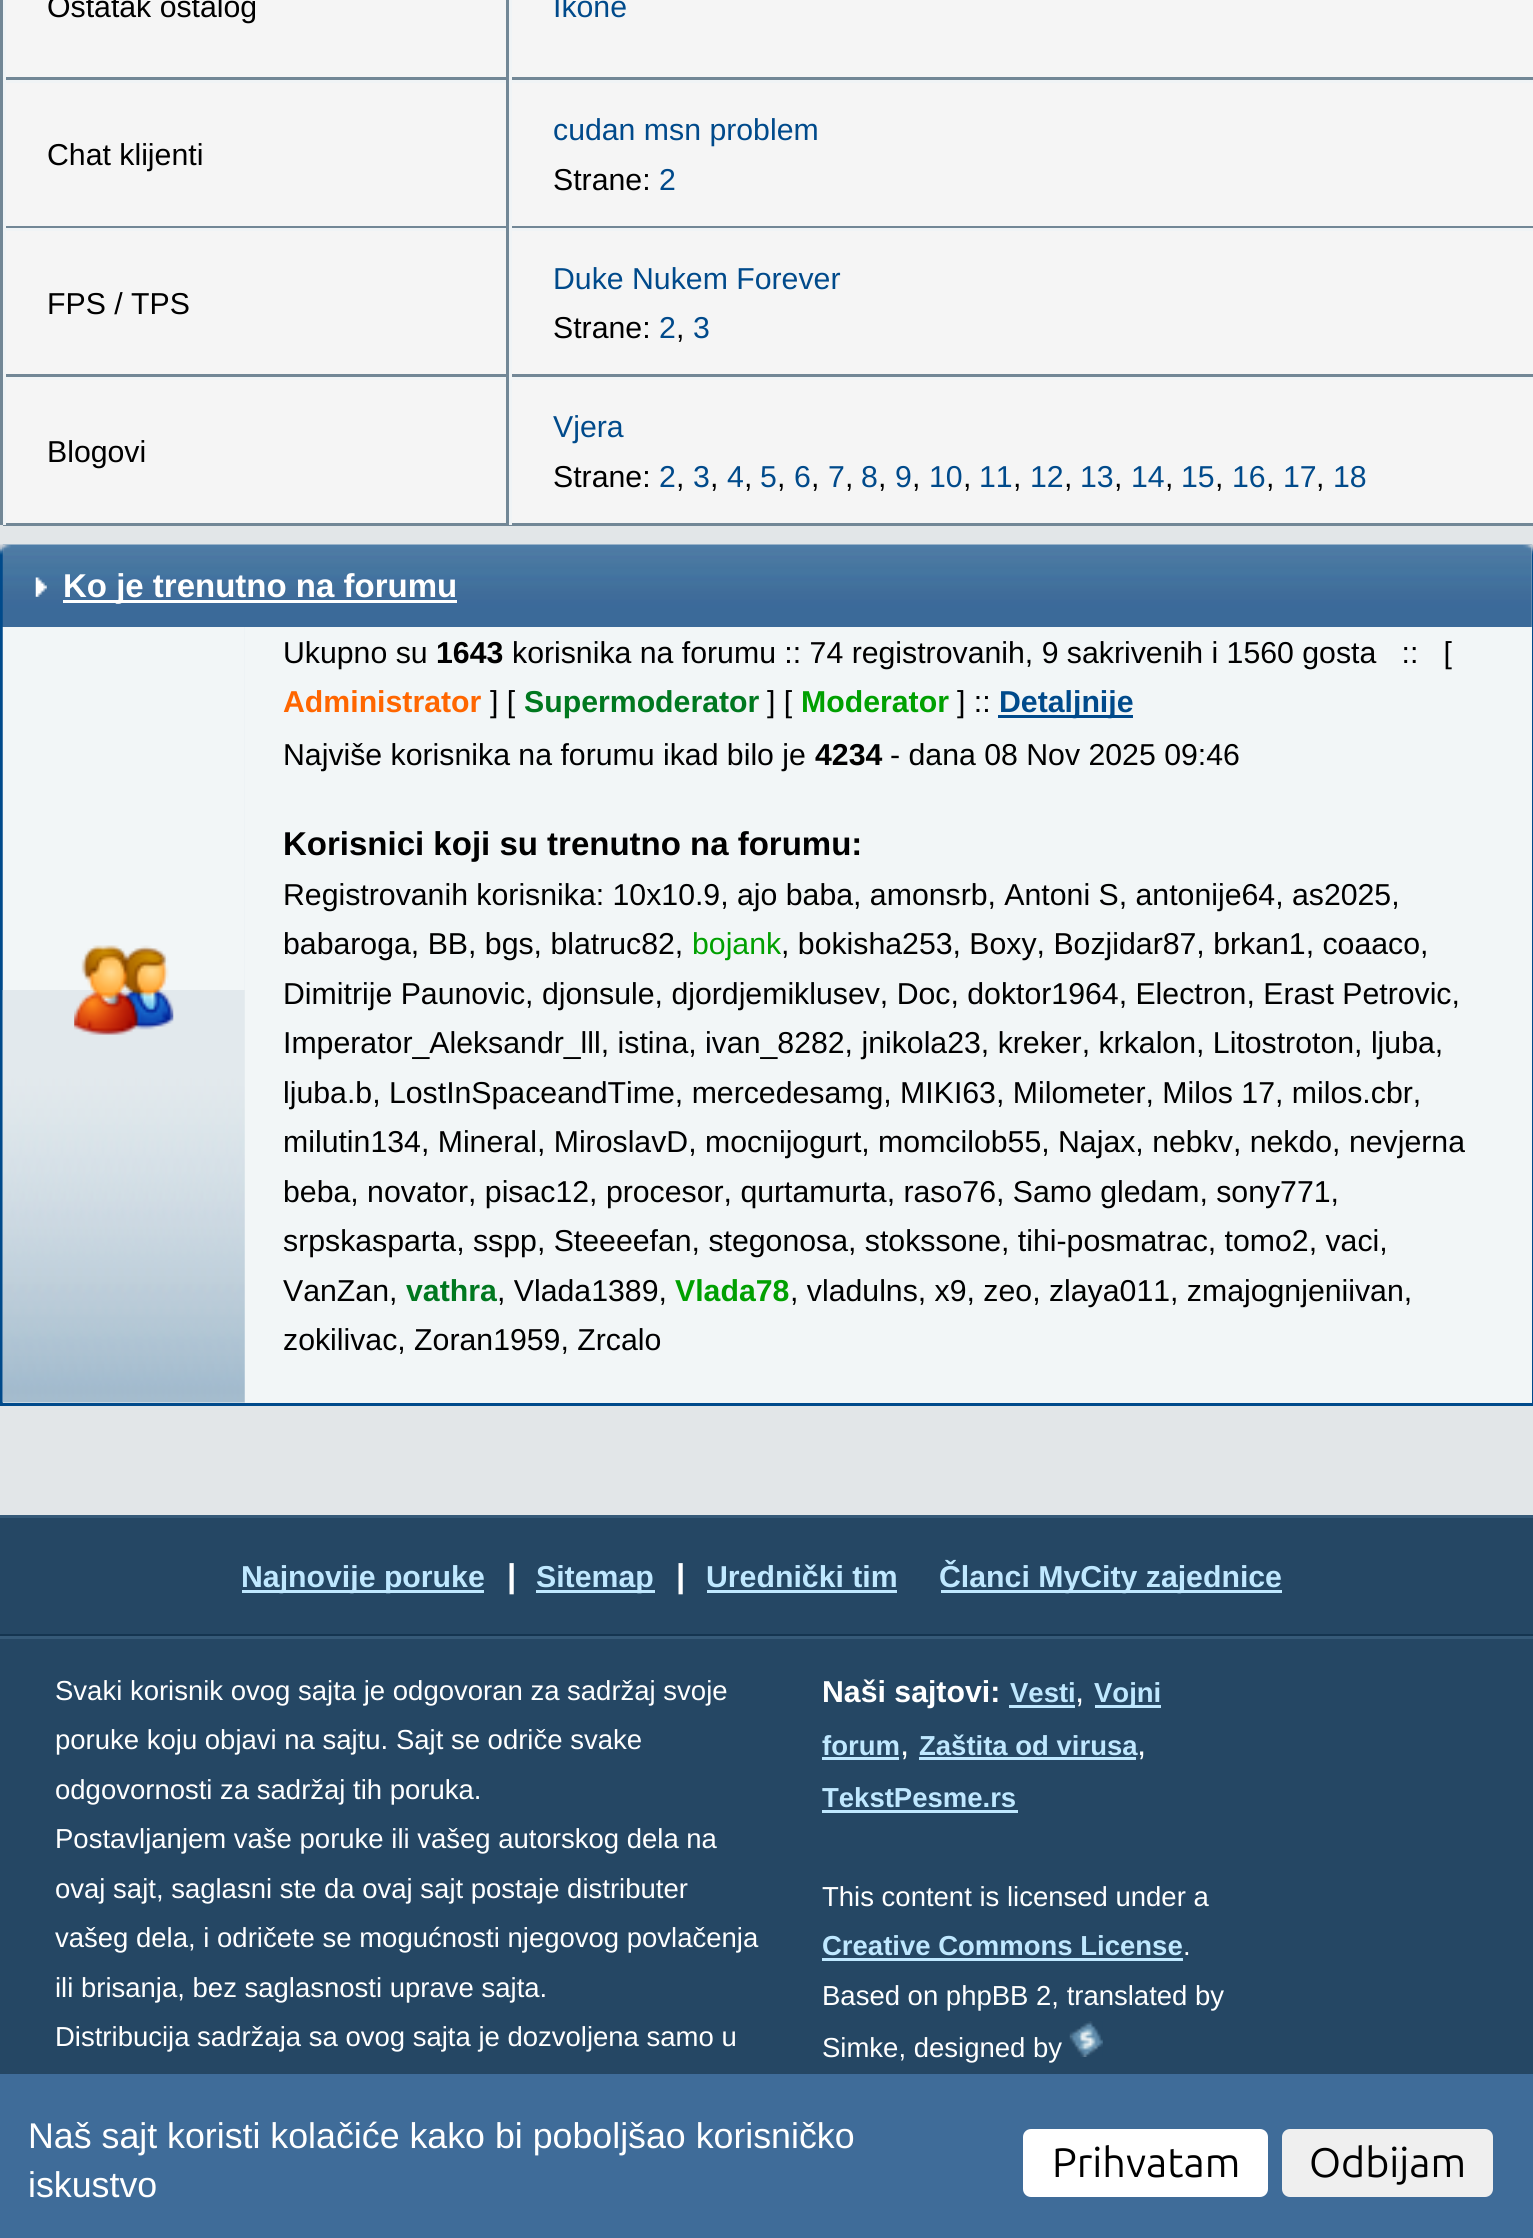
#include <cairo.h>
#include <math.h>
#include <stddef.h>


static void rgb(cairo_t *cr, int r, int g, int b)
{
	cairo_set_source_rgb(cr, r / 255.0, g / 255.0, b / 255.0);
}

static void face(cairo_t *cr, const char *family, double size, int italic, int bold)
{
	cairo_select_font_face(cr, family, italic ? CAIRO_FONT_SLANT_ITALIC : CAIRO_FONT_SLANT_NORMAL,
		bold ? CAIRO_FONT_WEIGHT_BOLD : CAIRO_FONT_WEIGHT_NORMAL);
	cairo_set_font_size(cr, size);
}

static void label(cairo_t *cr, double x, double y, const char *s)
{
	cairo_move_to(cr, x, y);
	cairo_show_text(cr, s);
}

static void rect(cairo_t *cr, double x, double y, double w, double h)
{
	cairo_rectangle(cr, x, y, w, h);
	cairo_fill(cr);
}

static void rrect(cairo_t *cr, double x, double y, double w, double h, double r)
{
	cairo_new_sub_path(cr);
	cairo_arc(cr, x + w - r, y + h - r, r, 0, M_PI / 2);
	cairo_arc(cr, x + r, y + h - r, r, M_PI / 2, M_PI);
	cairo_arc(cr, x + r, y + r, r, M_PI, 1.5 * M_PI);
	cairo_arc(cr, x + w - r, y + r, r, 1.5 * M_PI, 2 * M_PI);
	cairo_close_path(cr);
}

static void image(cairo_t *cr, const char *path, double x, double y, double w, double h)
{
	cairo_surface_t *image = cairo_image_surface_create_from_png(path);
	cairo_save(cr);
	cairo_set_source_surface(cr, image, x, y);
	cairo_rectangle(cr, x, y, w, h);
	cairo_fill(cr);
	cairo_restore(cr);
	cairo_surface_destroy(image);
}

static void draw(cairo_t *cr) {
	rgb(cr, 226, 230, 232);
	cairo_paint(cr);
	rgb(cr, 114, 135, 150);
	rect(cr, 0, 0, 3, 525);
	rgb(cr, 245, 245, 245);
	rect(cr, 6, 0, 500, 77);
	rgb(cr, 114, 135, 150);
	rect(cr, 506, 0, 3, 80);
	rect(cr, 3, 77, 1530, 3);
	rgb(cr, 240, 244, 246);
	rect(cr, 3, 0, 3, 80);
	face(cr, "Liberation Sans", 30.25, 0, 0);
	rgb(cr, 0, 0, 0);
	label(cr, 47, 17, "Ostatak ostalog");
	rgb(cr, 245, 245, 245);
	rect(cr, 512, 0, 1021, 77);
	rgb(cr, 240, 244, 246);
	rect(cr, 509, 0, 3, 80);
	rgb(cr, 0, 74, 139);
	label(cr, 553, 17, "Ikone");
	rgb(cr, 245, 245, 245);
	rect(cr, 6, 83, 500, 143);
	rgb(cr, 240, 244, 246);
	rect(cr, 3, 80, 1530, 3);
	rgb(cr, 114, 135, 150);
	rect(cr, 506, 80, 3, 148);
	rect(cr, 3, 226, 1530, 2);
	rgb(cr, 240, 244, 246);
	rect(cr, 3, 80, 3, 148);
	rgb(cr, 0, 0, 0);
	label(cr, 47, 165, "Chat klijenti");
	rgb(cr, 245, 245, 245);
	rect(cr, 512, 83, 1021, 143);
	rgb(cr, 240, 244, 246);
	rect(cr, 509, 80, 3, 148);
	rgb(cr, 0, 74, 139);
	label(cr, 553, 140, "cudan msn problem");
	rgb(cr, 0, 0, 0);
	label(cr, 553, 190, "Strane:");
	rgb(cr, 0, 74, 139);
	label(cr, 659, 190, "2");
	rgb(cr, 245, 245, 245);
	rect(cr, 6, 231, 500, 143);
	rgb(cr, 240, 244, 246);
	rect(cr, 3, 228, 1530, 3);
	rgb(cr, 114, 135, 150);
	rect(cr, 506, 228, 3, 149);
	rect(cr, 3, 374, 1530, 3);
	rgb(cr, 240, 244, 246);
	rect(cr, 3, 228, 3, 149);
	rgb(cr, 0, 0, 0);
	label(cr, 47, 314, "FPS / TPS");
	rgb(cr, 245, 245, 245);
	rect(cr, 512, 231, 1021, 143);
	rgb(cr, 240, 244, 246);
	rect(cr, 509, 228, 3, 149);
	rgb(cr, 0, 74, 139);
	label(cr, 553, 289, "Duke Nukem Forever");
	rgb(cr, 0, 0, 0);
	label(cr, 553, 338, "Strane:");
	rgb(cr, 0, 74, 139);
	label(cr, 659, 338, "2");
	rgb(cr, 0, 0, 0);
	label(cr, 676, 338, ",");
	rgb(cr, 0, 74, 139);
	label(cr, 693, 338, "3");
	rgb(cr, 245, 245, 245);
	rect(cr, 6, 380, 500, 143);
	rgb(cr, 240, 244, 246);
	rect(cr, 3, 377, 1530, 3);
	rgb(cr, 114, 135, 150);
	rect(cr, 506, 377, 3, 148);
	rect(cr, 3, 523, 1530, 3);
	rgb(cr, 240, 244, 246);
	rect(cr, 3, 377, 3, 148);
	rgb(cr, 0, 0, 0);
	label(cr, 47, 462, "Blogovi");
	rgb(cr, 245, 245, 245);
	rect(cr, 512, 380, 1021, 143);
	rgb(cr, 240, 244, 246);
	rect(cr, 509, 377, 3, 148);
	rgb(cr, 0, 74, 139);
	label(cr, 553, 437, "Vjera");
	rgb(cr, 0, 0, 0);
	label(cr, 553, 487, "Strane:");
	rgb(cr, 0, 74, 139);
	label(cr, 659, 487, "2");
	rgb(cr, 0, 0, 0);
	label(cr, 676, 487, ",");
	rgb(cr, 0, 74, 139);
	label(cr, 693, 487, "3");
	rgb(cr, 0, 0, 0);
	label(cr, 710, 487, ",");
	rgb(cr, 0, 74, 139);
	label(cr, 727, 487, "4");
	rgb(cr, 0, 0, 0);
	label(cr, 744, 487, ",");
	rgb(cr, 0, 74, 139);
	label(cr, 760, 487, "5");
	rgb(cr, 0, 0, 0);
	label(cr, 777, 487, ",");
	rgb(cr, 0, 74, 139);
	label(cr, 794, 487, "6");
	rgb(cr, 0, 0, 0);
	label(cr, 811, 487, ",");
	rgb(cr, 0, 74, 139);
	label(cr, 828, 487, "7");
	rgb(cr, 0, 0, 0);
	label(cr, 845, 487, ",");
	rgb(cr, 0, 74, 139);
	label(cr, 861, 487, "8");
	rgb(cr, 0, 0, 0);
	label(cr, 878, 487, ",");
	rgb(cr, 0, 74, 139);
	label(cr, 895, 487, "9");
	rgb(cr, 0, 0, 0);
	label(cr, 912, 487, ",");
	rgb(cr, 0, 74, 139);
	label(cr, 929, 487, "10");
	rgb(cr, 0, 0, 0);
	label(cr, 963, 487, ",");
	rgb(cr, 0, 74, 139);
	label(cr, 979, 487, "11");
	rgb(cr, 0, 0, 0);
	label(cr, 1013, 487, ",");
	rgb(cr, 0, 74, 139);
	label(cr, 1030, 487, "12");
	rgb(cr, 0, 0, 0);
	label(cr, 1064, 487, ",");
	rgb(cr, 0, 74, 139);
	label(cr, 1080, 487, "13");
	rgb(cr, 0, 0, 0);
	label(cr, 1114, 487, ",");
	rgb(cr, 0, 74, 139);
	label(cr, 1131, 487, "14");
	rgb(cr, 0, 0, 0);
	label(cr, 1165, 487, ",");
	rgb(cr, 0, 74, 139);
	label(cr, 1181, 487, "15");
	rgb(cr, 0, 0, 0);
	label(cr, 1215, 487, ",");
	rgb(cr, 0, 74, 139);
	label(cr, 1232, 487, "16");
	rgb(cr, 0, 0, 0);
	label(cr, 1266, 487, ",");
	rgb(cr, 0, 74, 139);
	label(cr, 1283, 487, "17");
	rgb(cr, 0, 0, 0);
	label(cr, 1316, 487, ",");
	rgb(cr, 0, 74, 139);
	label(cr, 1333, 487, "18");
	rect(cr, 1532, 545, 1, 860);
	rect(cr, 0, 1403, 1533, 3);
	rect(cr, 0, 545, 3, 860);
	image(cr, "image2.png", 2, 544, 1530, 83);
	image(cr, "image0.png", 0, 544, 11, 11);
	image(cr, "image1.png", 1523, 544, 10, 11);
	image(cr, "image3.png", 35, 577, 12, 20);
	rgb(cr, 255, 255, 255);
	rect(cr, 63, 600, 394, 3);
	face(cr, "Liberation Sans", 33, 0, 1);
	label(cr, 63, 597, "Ko je trenutno na forumu");
	rgb(cr, 242, 246, 247);
	rect(cr, 245, 627, 1287, 776);
	rgb(cr, 226, 233, 237);
	rect(cr, 3, 627, 242, 776);
	image(cr, "image4.png", 2, 627, 243, 776);
	image(cr, "image5.png", 74, 945, 100, 90);
	face(cr, "Liberation Sans", 30.25, 0, 0);
	rgb(cr, 0, 0, 0);
	label(cr, 283, 663, "Ukupno su");
	face(cr, "Liberation Sans", 30.25, 0, 1);
	label(cr, 436, 663, "1643");
	face(cr, "Liberation Sans", 30.25, 0, 0);
	label(cr, 512, 663, "korisnika na forumu :: 74 registrovanih, 9 sakrivenih i 1560 gosta   ::   [");
	face(cr, "Liberation Sans", 30.25, 0, 1);
	rgb(cr, 255, 102, 0);
	label(cr, 283, 712, "Administrator");
	face(cr, "Liberation Sans", 30.25, 0, 0);
	rgb(cr, 0, 0, 0);
	label(cr, 490, 712, "] [");
	face(cr, "Liberation Sans", 30.25, 0, 1);
	rgb(cr, 0, 120, 31);
	label(cr, 524, 712, "Supermoderator");
	face(cr, "Liberation Sans", 30.25, 0, 0);
	rgb(cr, 0, 0, 0);
	label(cr, 767, 712, "] [");
	face(cr, "Liberation Sans", 30.25, 0, 1);
	rgb(cr, 0, 160, 0);
	label(cr, 801, 712, "Moderator");
	face(cr, "Liberation Sans", 30.25, 0, 0);
	rgb(cr, 0, 0, 0);
	label(cr, 957, 712, "] ::");
	rgb(cr, 0, 74, 139);
	rect(cr, 998, 715, 135, 3);
	face(cr, "Liberation Sans", 30.25, 0, 1);
	label(cr, 999, 712, "Detaljnije");
	face(cr, "Liberation Sans", 30.25, 0, 0);
	rgb(cr, 0, 0, 0);
	label(cr, 283, 765, "Najviše korisnika na forumu ikad bilo je");
	face(cr, "Liberation Sans", 30.25, 0, 1);
	label(cr, 815, 765, "4234");
	face(cr, "Liberation Sans", 30.25, 0, 0);
	label(cr, 890, 765, "- dana 08 Nov 2025 09:46");
	face(cr, "Liberation Sans", 33, 0, 1);
	label(cr, 283, 855, "Korisnici koji su trenutno na forumu:");
	face(cr, "Liberation Sans", 30.25, 0, 0);
	label(cr, 283, 905, "Registrovanih korisnika: 10x10.9, ajo baba, amonsrb, Antoni S, antonije64, as2025,");
	label(cr, 283, 954, "babaroga, BB, bgs, blatruc82,");
	rgb(cr, 0, 160, 0);
	label(cr, 692, 954, "bojank");
	rgb(cr, 0, 0, 0);
	label(cr, 781, 954, ", bokisha253, Boxy, Bozjidar87, brkan1, coaaco,");
	label(cr, 283, 1004, "Dimitrije Paunovic, djonsule, djordjemiklusev, Doc, doktor1964, Electron, Erast Petrovic,");
	label(cr, 283, 1053, "Imperator_Aleksandr_lll, istina, ivan_8282, jnikola23, kreker, krkalon, Litostroton, ljuba,");
	label(cr, 283, 1103, "ljuba.b, LostInSpaceandTime, mercedesamg, MIKI63, Milometer, Milos 17, milos.cbr,");
	label(cr, 283, 1152, "milutin134, Mineral, MiroslavD, mocnijogurt, momcilob55, Najax, nebkv, nekdo, nevjerna");
	label(cr, 283, 1202, "beba, novator, pisac12, procesor, qurtamurta, raso76, Samo gledam, sony771,");
	label(cr, 283, 1251, "srpskasparta, sspp, Steeeefan, stegonosa, stokssone, tihi-posmatrac, tomo2, vaci,");
	label(cr, 283, 1301, "VanZan,");
	face(cr, "Liberation Sans", 30.25, 0, 1);
	rgb(cr, 0, 120, 31);
	label(cr, 406, 1301, "vathra");
	face(cr, "Liberation Sans", 30.25, 0, 0);
	rgb(cr, 0, 0, 0);
	label(cr, 497, 1301, ", Vlada1389,");
	face(cr, "Liberation Sans", 30.25, 0, 1);
	rgb(cr, 0, 160, 0);
	label(cr, 675, 1301, "Vlada78");
	face(cr, "Liberation Sans", 30.25, 0, 0);
	rgb(cr, 0, 0, 0);
	label(cr, 790, 1301, ", vladulns, x9, zeo, zlaya011, zmajognjeniivan,");
	label(cr, 283, 1350, "zokilivac, Zoran1959, Zrcalo");
	rgb(cr, 37, 71, 100);
	rect(cr, 0, 1518, 1533, 556);
	rgb(cr, 54, 90, 120);
	rect(cr, 0, 1515, 1533, 3);
	rgb(cr, 21, 53, 80);
	rect(cr, 0, 1634, 1533, 2);
	rgb(cr, 191, 232, 255);
	rect(cr, 242, 1590, 242, 3);
	face(cr, "Liberation Sans", 30.25, 0, 1);
	label(cr, 241, 1587, "Najnovije poruke");
	face(cr, "Liberation Sans", 33, 0, 1);
	rgb(cr, 255, 255, 255);
	label(cr, 507, 1587, "|");
	rgb(cr, 191, 232, 255);
	rect(cr, 536, 1590, 119, 3);
	face(cr, "Liberation Sans", 30.25, 0, 1);
	label(cr, 536, 1587, "Sitemap");
	face(cr, "Liberation Sans", 33, 0, 1);
	rgb(cr, 255, 255, 255);
	label(cr, 676, 1587, "|");
	face(cr, "Liberation Sans", 30.25, 0, 1);
	rgb(cr, 191, 232, 255);
	label(cr, 706, 1587, "Urednički tim");
	rect(cr, 707, 1590, 190, 3);
	rect(cr, 941, 1590, 341, 3);
	label(cr, 939, 1587, "Članci MyCity zajednice");
	rgb(cr, 54, 90, 120);
	rect(cr, 0, 1636, 1533, 3);
	face(cr, "Liberation Sans", 27.5, 0, 0);
	rgb(cr, 255, 255, 255);
	label(cr, 55, 1700, "Svaki korisnik ovog sajta je odgovoran za sadržaj svoje");
	label(cr, 55, 1749, "poruke koju objavi na sajtu. Sajt se odriče svake");
	label(cr, 55, 1799, "odgovornosti za sadržaj tih poruka.");
	label(cr, 55, 1848, "Postavljanjem vaše poruke ili vašeg autorskog dela na");
	label(cr, 55, 1898, "ovaj sajt, saglasni ste da ovaj sajt postaje distributer");
	label(cr, 55, 1947, "vašeg dela, i odričete se mogućnosti njegovog povlačenja");
	label(cr, 55, 1997, "ili brisanja, bez saglasnosti uprave sajta.");
	label(cr, 55, 2046, "Distribucija sadržaja sa ovog sajta je dozvoljena samo u");
	face(cr, "Liberation Sans", 30.25, 0, 1);
	label(cr, 822, 1702, "Naši sajtovi:");
	face(cr, "Liberation Sans", 27.5, 0, 1);
	rgb(cr, 191, 232, 255);
	label(cr, 1010, 1702, "Vesti");
	rect(cr, 1009, 1705, 66, 3);
	face(cr, "Liberation Sans", 33, 0, 0);
	rgb(cr, 255, 255, 255);
	label(cr, 1075, 1702, ",");
	rgb(cr, 191, 232, 255);
	rect(cr, 1095, 1705, 66, 3);
	face(cr, "Liberation Sans", 27.5, 0, 1);
	label(cr, 1094, 1702, "Vojni");
	label(cr, 822, 1755, "forum");
	rect(cr, 822, 1757, 77, 3);
	face(cr, "Liberation Sans", 33, 0, 0);
	rgb(cr, 255, 255, 255);
	label(cr, 900, 1755, ",");
	face(cr, "Liberation Sans", 27.5, 0, 1);
	rgb(cr, 191, 232, 255);
	label(cr, 919, 1755, "Zaštita od virusa");
	rect(cr, 919, 1757, 217, 3);
	face(cr, "Liberation Sans", 33, 0, 0);
	rgb(cr, 255, 255, 255);
	label(cr, 1137, 1755, ",");
	face(cr, "Liberation Sans", 27.5, 0, 1);
	rgb(cr, 191, 232, 255);
	label(cr, 822, 1807, "TekstPesme.rs");
	rect(cr, 822, 1810, 196, 3);
	face(cr, "Liberation Sans", 27.5, 0, 0);
	rgb(cr, 255, 255, 255);
	label(cr, 822, 1906, "This content is licensed under a");
	face(cr, "Liberation Sans", 27.5, 0, 1);
	rgb(cr, 191, 232, 255);
	label(cr, 822, 1955, "Creative Commons License");
	rect(cr, 822, 1958, 361, 3);
	face(cr, "Liberation Sans", 27.5, 0, 0);
	rgb(cr, 255, 255, 255);
	label(cr, 1183, 1955, ".");
	label(cr, 822, 2005, "Based on phpBB 2, translated by");
	label(cr, 822, 2057, "Simke, designed by");
	image(cr, "image6.png", 1069, 2021, 34, 36);
	rgb(cr, 63, 108, 153);
	rect(cr, 0, 2074, 1533, 164);
	face(cr, "Liberation Sans", 35.75, 0, 0);
	rgb(cr, 255, 255, 255);
	label(cr, 28, 2148, "Naš sajt koristi kolačiće kako bi poboljšao korisničko");
	label(cr, 28, 2197, "iskustvo");
	rrect(cr, 1023, 2129, 245, 68, 8);
	cairo_fill(cr);
	face(cr, "Ubuntu", 41.25, 0, 0);
	rgb(cr, 0, 0, 0);
	label(cr, 1052, 2177, "Prihvatam");
	rgb(cr, 239, 239, 239);
	rrect(cr, 1282, 2129, 211, 68, 8);
	cairo_fill(cr);
	rgb(cr, 0, 0, 0);
	label(cr, 1309, 2177, "Odbijam");
}

int main(void) {
	cairo_surface_t *surface = cairo_image_surface_create(CAIRO_FORMAT_RGB24, 1533, 2238);
	cairo_t *cr = cairo_create(surface);
	cairo_font_options_t *options = cairo_font_options_create();
	cairo_font_options_set_hint_metrics(options, CAIRO_HINT_METRICS_OFF);
	cairo_font_options_set_hint_style(options, CAIRO_HINT_STYLE_NONE);
	cairo_set_font_options(cr, options);
	cairo_set_miter_limit(cr, 4);
	draw(cr);
	cairo_surface_write_to_png(surface, "render.png");
	cairo_font_options_destroy(options);
	cairo_destroy(cr);
	cairo_surface_destroy(surface);
	return 0;
}
